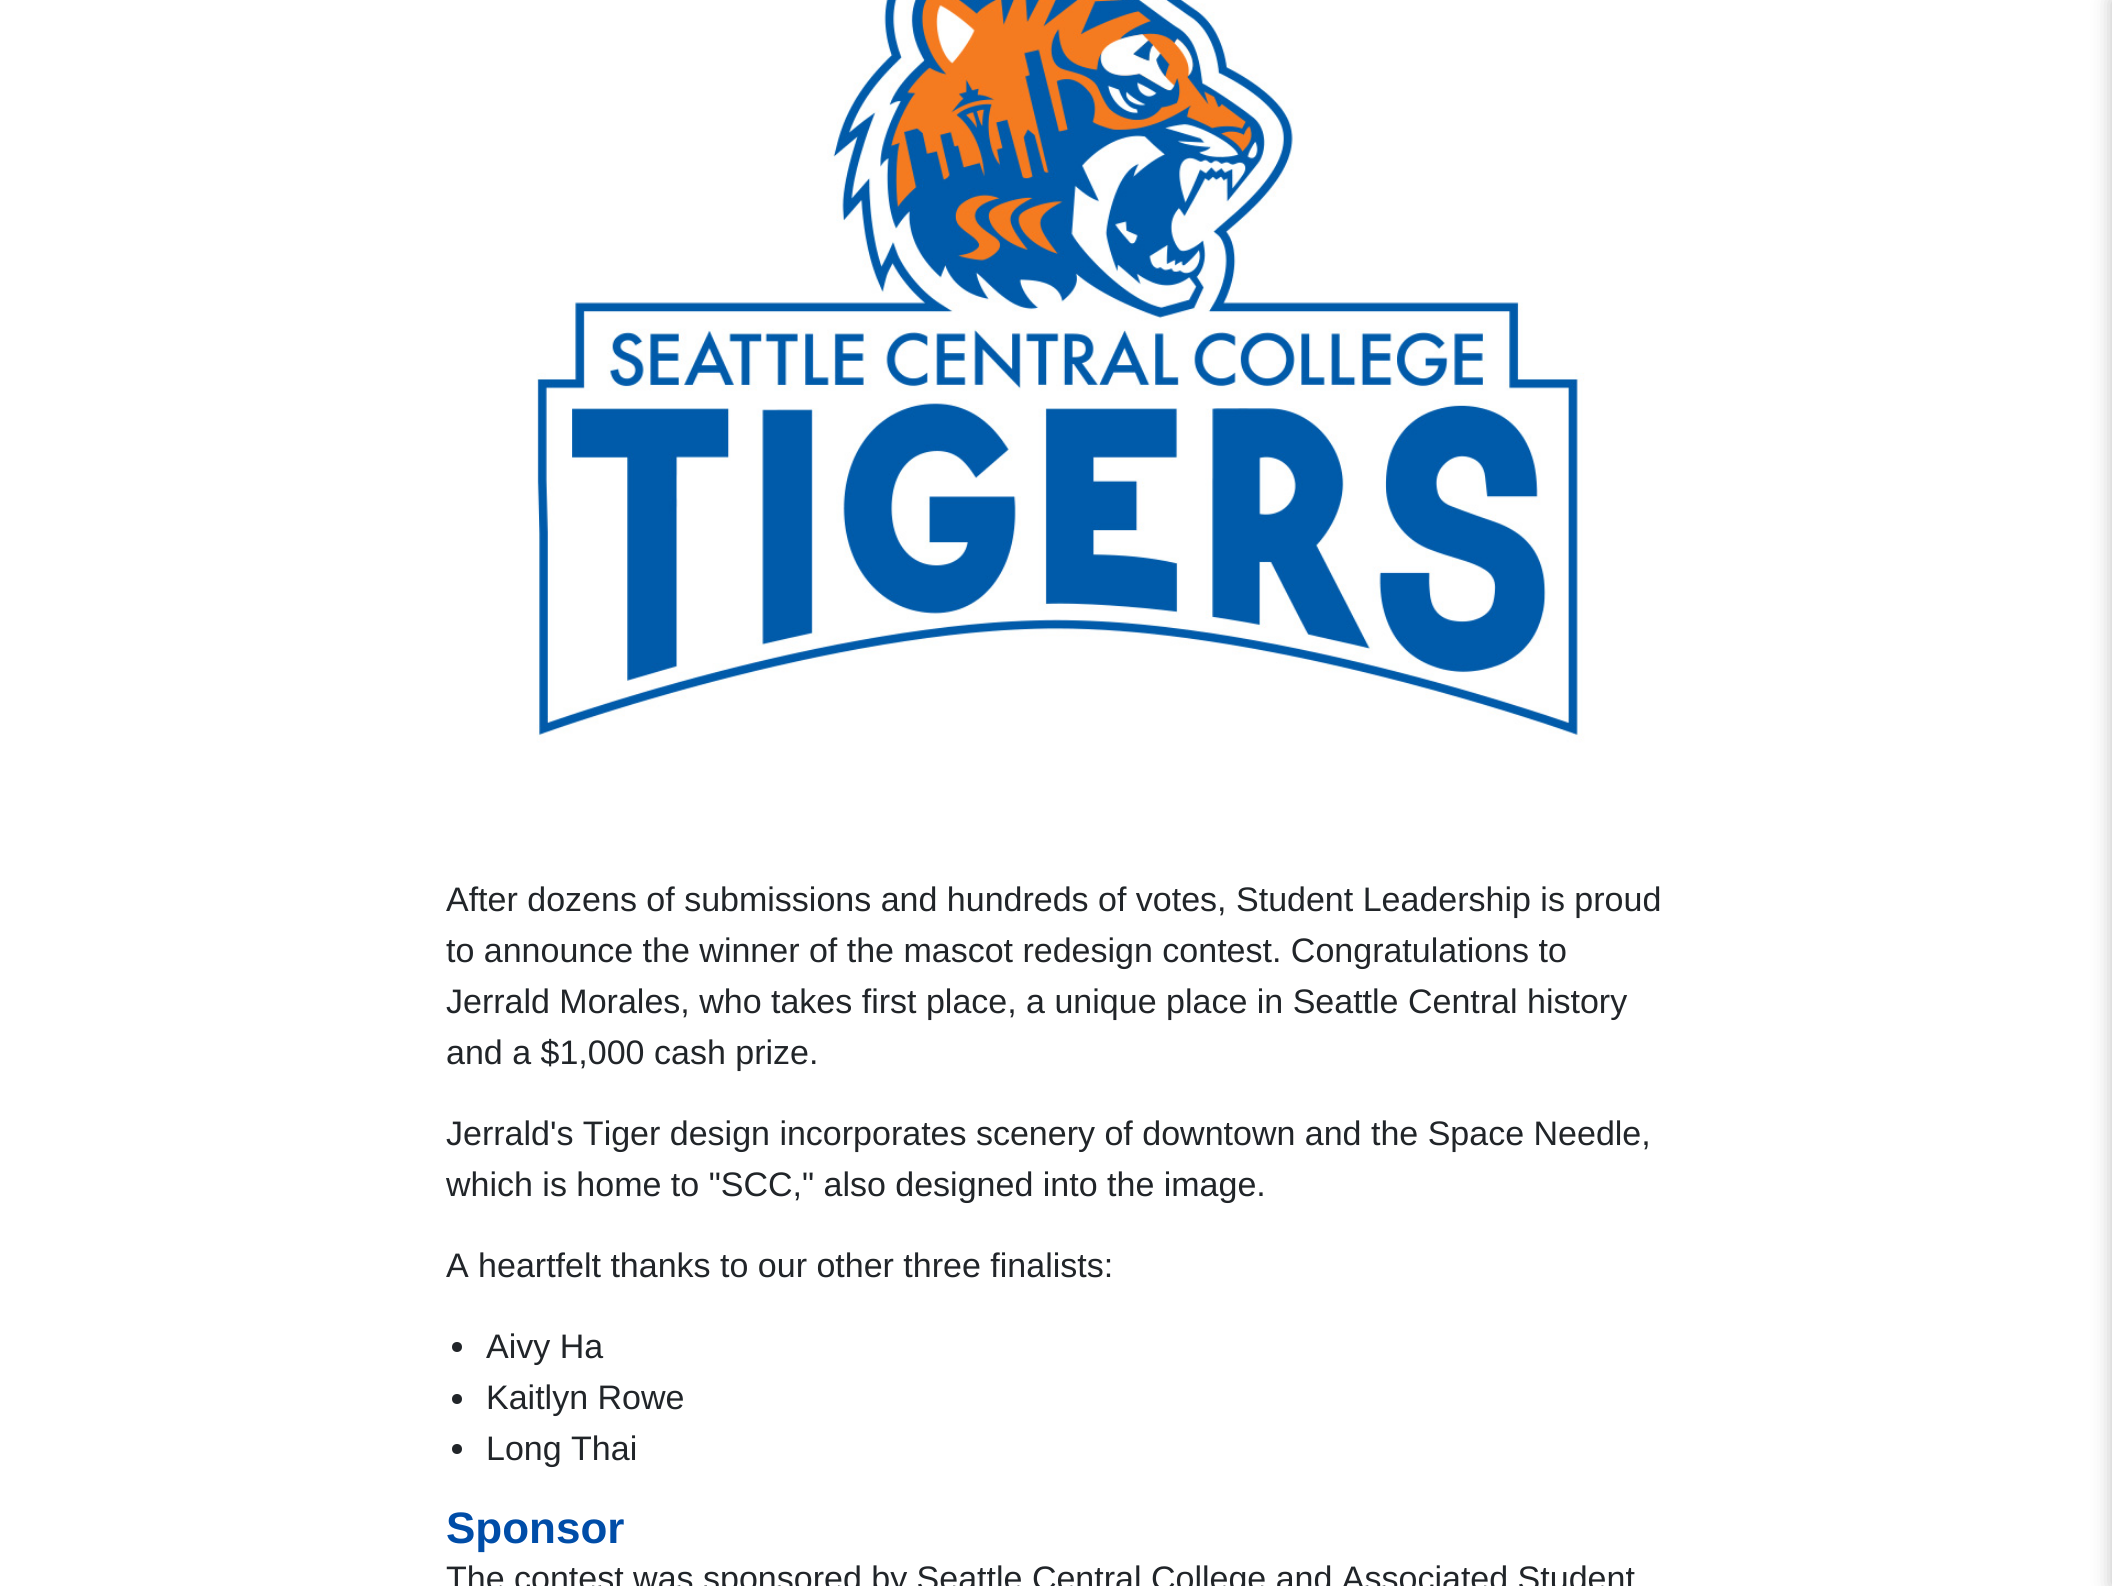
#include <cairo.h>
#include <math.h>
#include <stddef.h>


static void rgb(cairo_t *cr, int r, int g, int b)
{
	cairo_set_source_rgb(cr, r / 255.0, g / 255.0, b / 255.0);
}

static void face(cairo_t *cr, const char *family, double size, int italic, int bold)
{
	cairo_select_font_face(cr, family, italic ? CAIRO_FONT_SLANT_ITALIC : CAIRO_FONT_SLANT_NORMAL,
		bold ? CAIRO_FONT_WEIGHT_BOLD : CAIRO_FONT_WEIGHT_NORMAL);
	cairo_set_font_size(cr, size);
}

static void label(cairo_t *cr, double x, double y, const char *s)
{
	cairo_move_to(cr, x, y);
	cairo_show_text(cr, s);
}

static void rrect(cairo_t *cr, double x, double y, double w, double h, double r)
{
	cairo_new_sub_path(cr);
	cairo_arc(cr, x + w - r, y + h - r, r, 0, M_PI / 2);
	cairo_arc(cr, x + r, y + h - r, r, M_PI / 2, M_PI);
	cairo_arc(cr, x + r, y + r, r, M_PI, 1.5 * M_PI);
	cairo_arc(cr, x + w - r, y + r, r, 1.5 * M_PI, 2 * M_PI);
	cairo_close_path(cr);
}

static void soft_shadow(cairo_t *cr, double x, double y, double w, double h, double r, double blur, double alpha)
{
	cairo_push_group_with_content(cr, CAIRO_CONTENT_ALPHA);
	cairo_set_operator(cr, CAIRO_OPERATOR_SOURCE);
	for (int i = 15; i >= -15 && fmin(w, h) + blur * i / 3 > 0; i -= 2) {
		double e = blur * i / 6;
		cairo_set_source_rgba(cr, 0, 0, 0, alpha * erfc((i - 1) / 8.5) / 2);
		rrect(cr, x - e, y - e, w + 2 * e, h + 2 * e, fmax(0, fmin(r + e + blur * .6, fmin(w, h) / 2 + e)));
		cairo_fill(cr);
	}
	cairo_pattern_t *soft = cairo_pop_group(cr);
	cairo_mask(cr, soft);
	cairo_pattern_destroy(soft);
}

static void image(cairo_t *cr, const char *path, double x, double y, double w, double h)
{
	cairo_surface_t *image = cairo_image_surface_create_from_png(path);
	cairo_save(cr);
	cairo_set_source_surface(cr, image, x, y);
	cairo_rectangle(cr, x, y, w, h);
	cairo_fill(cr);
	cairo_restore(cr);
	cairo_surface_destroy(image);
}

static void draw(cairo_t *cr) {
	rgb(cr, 255, 255, 255);
	cairo_paint(cr);
	image(cr, "image0.png", 0, 0, 2112, 780);
	face(cr, "Liberation Sans", 34, 0, 0);
	rgb(cr, 33, 37, 41);
	label(cr, 446, 911, "After dozens of submissions and hundreds of votes, Student Leadership is proud");
	label(cr, 446, 962, "to announce the winner of the mascot redesign contest. Congratulations to");
	label(cr, 446, 1013, "Jerrald Morales, who takes first place, a unique place in Seattle Central history");
	label(cr, 446, 1064, "and a $1,000 cash prize.");
	label(cr, 446, 1145, "Jerrald's Tiger design incorporates scenery of downtown and the Space Needle,");
	label(cr, 446, 1196, "which is home to \"SCC,\" also designed into the image.");
	label(cr, 446, 1277, "A heartfelt thanks to our other three finalists:");
	cairo_new_path(cr);
	cairo_arc(cr, 457, 1347, 5, 0, 2 * M_PI);
	cairo_fill(cr);
	label(cr, 486, 1358, "Aivy Ha");
	cairo_new_path(cr);
	cairo_arc(cr, 457, 1399, 5, 0, 2 * M_PI);
	cairo_fill(cr);
	label(cr, 486, 1409, "Kaitlyn Rowe");
	cairo_new_path(cr);
	cairo_arc(cr, 457, 1449, 5, 0, 2 * M_PI);
	cairo_fill(cr);
	label(cr, 486, 1460, "Long Thai");
	face(cr, "Liberation Sans", 44, 0, 1);
	rgb(cr, 0, 77, 168);
	label(cr, 446, 1543, "Sponsor");
	face(cr, "Liberation Sans", 34, 0, 0);
	rgb(cr, 33, 37, 41);
	label(cr, 446, 1590, "The contest was sponsored by Seattle Central College and Associated Student");
	rgb(cr, 0, 0, 0);
	soft_shadow(cr, 2112, 0, 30, 1586, 0, 10, 0.25);
}

int main(void) {
	cairo_surface_t *surface = cairo_image_surface_create(CAIRO_FORMAT_RGB24, 2112, 1586);
	cairo_t *cr = cairo_create(surface);
	cairo_font_options_t *options = cairo_font_options_create();
	cairo_font_options_set_hint_metrics(options, CAIRO_HINT_METRICS_OFF);
	cairo_font_options_set_hint_style(options, CAIRO_HINT_STYLE_NONE);
	cairo_set_font_options(cr, options);
	cairo_set_miter_limit(cr, 4);
	draw(cr);
	cairo_surface_write_to_png(surface, "render.png");
	cairo_font_options_destroy(options);
	cairo_destroy(cr);
	cairo_surface_destroy(surface);
	return 0;
}
